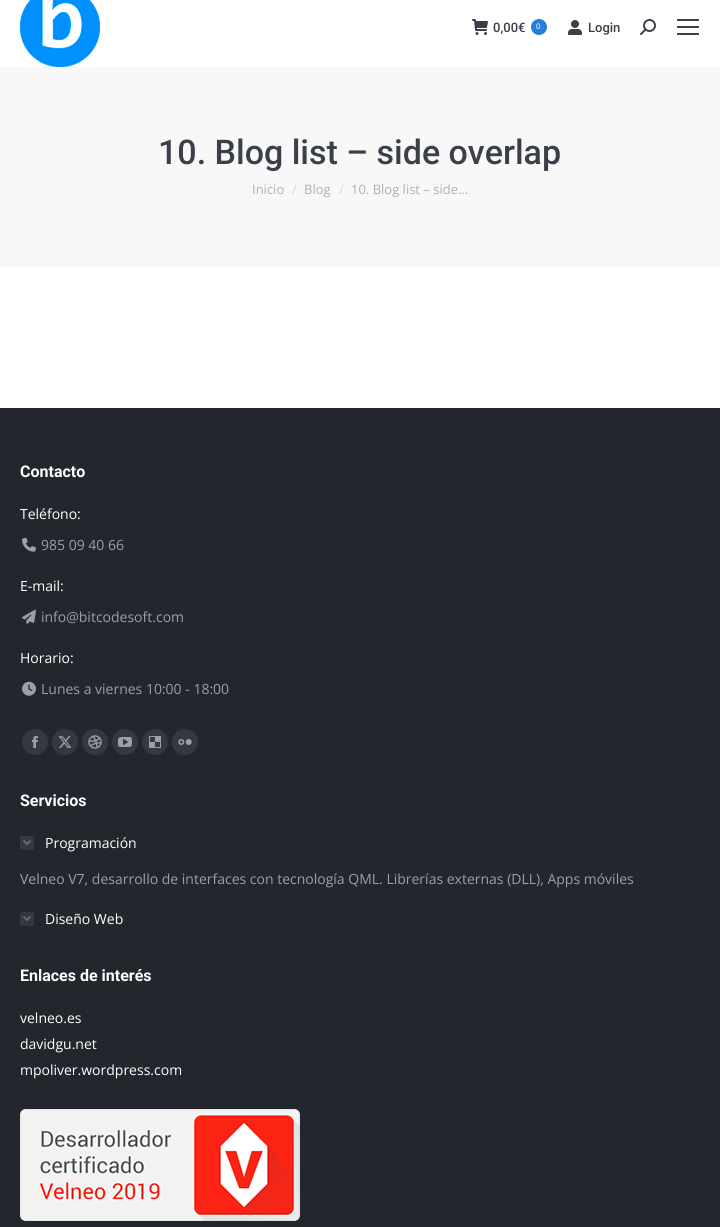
#include <cairo.h>
#include <math.h>
#include <stddef.h>


static void rgb(cairo_t *cr, int r, int g, int b)
{
	cairo_set_source_rgb(cr, r / 255.0, g / 255.0, b / 255.0);
}

static void face(cairo_t *cr, const char *family, double size, int italic, int bold)
{
	cairo_select_font_face(cr, family, italic ? CAIRO_FONT_SLANT_ITALIC : CAIRO_FONT_SLANT_NORMAL,
		bold ? CAIRO_FONT_WEIGHT_BOLD : CAIRO_FONT_WEIGHT_NORMAL);
	cairo_set_font_size(cr, size);
}

static void label(cairo_t *cr, double x, double y, const char *s)
{
	cairo_move_to(cr, x, y);
	cairo_show_text(cr, s);
}

static void rect(cairo_t *cr, double x, double y, double w, double h)
{
	cairo_rectangle(cr, x, y, w, h);
	cairo_fill(cr);
}

static void rrect(cairo_t *cr, double x, double y, double w, double h, double r)
{
	cairo_new_sub_path(cr);
	cairo_arc(cr, x + w - r, y + h - r, r, 0, M_PI / 2);
	cairo_arc(cr, x + r, y + h - r, r, M_PI / 2, M_PI);
	cairo_arc(cr, x + r, y + r, r, M_PI, 1.5 * M_PI);
	cairo_arc(cr, x + w - r, y + r, r, 1.5 * M_PI, 2 * M_PI);
	cairo_close_path(cr);
}

static void image(cairo_t *cr, const char *path, double x, double y, double w, double h)
{
	cairo_surface_t *image = cairo_image_surface_create_from_png(path);
	cairo_save(cr);
	cairo_set_source_surface(cr, image, x, y);
	cairo_rectangle(cr, x, y, w, h);
	cairo_fill(cr);
	cairo_restore(cr);
	cairo_surface_destroy(image);
}

static void draw(cairo_t *cr) {
	rgb(cr, 255, 255, 255);
	cairo_paint(cr);
	image(cr, "image0.png", 20, 0, 80, 67);
	image(cr, "image1.png", 472, 19, 16, 16);
	face(cr, "Roboto Medium", 13, 0, 0);
	rgb(cr, 59, 63, 74);
	label(cr, 493, 32, "0,00€");
	rgb(cr, 37, 126, 222);
	cairo_new_path(cr);
	cairo_arc(cr, 539, 27, 8, 0, 2 * M_PI);
	cairo_fill(cr);
	face(cr, "Liberation Sans", 8, 0, 0);
	rgb(cr, 255, 255, 255);
	label(cr, 536, 29, "0");
	image(cr, "image2.png", 568, 20, 14, 15);
	face(cr, "Roboto Medium", 13, 0, 0);
	rgb(cr, 59, 63, 74);
	label(cr, 588, 32, "Login");
	image(cr, "image3.png", 640, 19, 16, 16);
	rect(cr, 677, 19, 22, 2);
	rect(cr, 677, 26, 22, 2);
	rect(cr, 677, 33, 22, 2);
	rgb(cr, 248, 248, 249);
	rect(cr, 0, 67, 720, 200);
	face(cr, "Roboto Medium", 34, 0, 0);
	rgb(cr, 59, 63, 74);
	label(cr, 158, 164, "10. Blog list – side overlap");
	face(cr, "Open Sans", 13, 0, 0);
	rgb(cr, 173, 176, 182);
	label(cr, 252, 194, "Inicio");
	rgb(cr, 211, 212, 216);
	label(cr, 292, 194, "/");
	rgb(cr, 173, 176, 182);
	label(cr, 304, 194, "Blog");
	rgb(cr, 211, 212, 216);
	label(cr, 339, 194, "/");
	rgb(cr, 173, 176, 182);
	label(cr, 351, 194, "10. Blog list – side…");
	rgb(cr, 35, 38, 45);
	rect(cr, 0, 408, 720, 819);
	face(cr, "Roboto", 16, 0, 1);
	rgb(cr, 255, 255, 255);
	label(cr, 20, 477, "Contacto");
	face(cr, "Open Sans", 14, 0, 0);
	label(cr, 20, 519, "Teléfono:");
	image(cr, "image4.png", 22, 537, 14, 15);
	rgb(cr, 154, 160, 167);
	label(cr, 41, 550, "985 09 40 66");
	rgb(cr, 255, 255, 255);
	label(cr, 20, 591, "E-mail:");
	image(cr, "image5.png", 22, 609, 14, 15);
	rgb(cr, 154, 160, 167);
	label(cr, 41, 622, "info@bitcodesoft.com");
	rgb(cr, 255, 255, 255);
	label(cr, 20, 663, "Horario:");
	image(cr, "image6.png", 22, 681, 14, 15);
	rgb(cr, 154, 160, 167);
	label(cr, 41, 694, "Lunes a viernes 10:00 - 18:00");
	rgb(cr, 53, 56, 63);
	cairo_new_path(cr);
	cairo_arc(cr, 35, 742, 13, 0, 2 * M_PI);
	cairo_fill(cr);
	image(cr, "image7.png", 32, 736, 6, 12);
	cairo_arc(cr, 65, 742, 13, 0, 2 * M_PI);
	cairo_fill(cr);
	image(cr, "image8.png", 58, 736, 14, 12);
	cairo_arc(cr, 95, 742, 13, 0, 2 * M_PI);
	cairo_fill(cr);
	image(cr, "image9.png", 88, 735, 14, 14);
	cairo_arc(cr, 125, 742, 13, 0, 2 * M_PI);
	cairo_fill(cr);
	image(cr, "image10.png", 118, 737, 14, 10);
	cairo_arc(cr, 155, 742, 13, 0, 2 * M_PI);
	cairo_fill(cr);
	image(cr, "image11.png", 149, 736, 12, 12);
	cairo_arc(cr, 185, 742, 13, 0, 2 * M_PI);
	cairo_fill(cr);
	image(cr, "image12.png", 178, 739, 14, 6);
	face(cr, "Roboto", 16, 0, 1);
	rgb(cr, 255, 255, 255);
	label(cr, 20, 806, "Servicios");
	rgb(cr, 53, 56, 63);
	rrect(cr, 20, 836, 14, 14, 2);
	cairo_fill(cr);
	face(cr, "Open Sans", 14, 0, 0);
	rgb(cr, 255, 255, 255);
	label(cr, 45, 848, "Programación");
	image(cr, "image13.png", 23, 840, 8, 5);
	rgb(cr, 154, 160, 167);
	label(cr, 20, 884, "Velneo V7, desarrollo de interfaces con tecnología QML. Librerías externas (DLL), Apps móviles");
	rgb(cr, 53, 56, 63);
	rrect(cr, 20, 912, 14, 14, 2);
	cairo_fill(cr);
	rgb(cr, 255, 255, 255);
	label(cr, 45, 924, "Diseño Web");
	image(cr, "image13.png", 23, 916, 8, 5);
	face(cr, "Roboto", 16, 0, 1);
	label(cr, 20, 981, "Enlaces de interés");
	face(cr, "Open Sans", 14, 0, 0);
	label(cr, 20, 1023, "velneo.es");
	label(cr, 20, 1049, "davidgu.net");
	label(cr, 20, 1075, "mpoliver.wordpress.com");
	image(cr, "image14.png", 20, 1109, 280, 112);
}

int main(void) {
	cairo_surface_t *surface = cairo_image_surface_create(CAIRO_FORMAT_RGB24, 720, 1227);
	cairo_t *cr = cairo_create(surface);
	cairo_font_options_t *options = cairo_font_options_create();
	cairo_font_options_set_hint_metrics(options, CAIRO_HINT_METRICS_OFF);
	cairo_font_options_set_hint_style(options, CAIRO_HINT_STYLE_NONE);
	cairo_set_font_options(cr, options);
	cairo_set_miter_limit(cr, 4);
	draw(cr);
	cairo_surface_write_to_png(surface, "render.png");
	cairo_font_options_destroy(options);
	cairo_destroy(cr);
	cairo_surface_destroy(surface);
	return 0;
}
